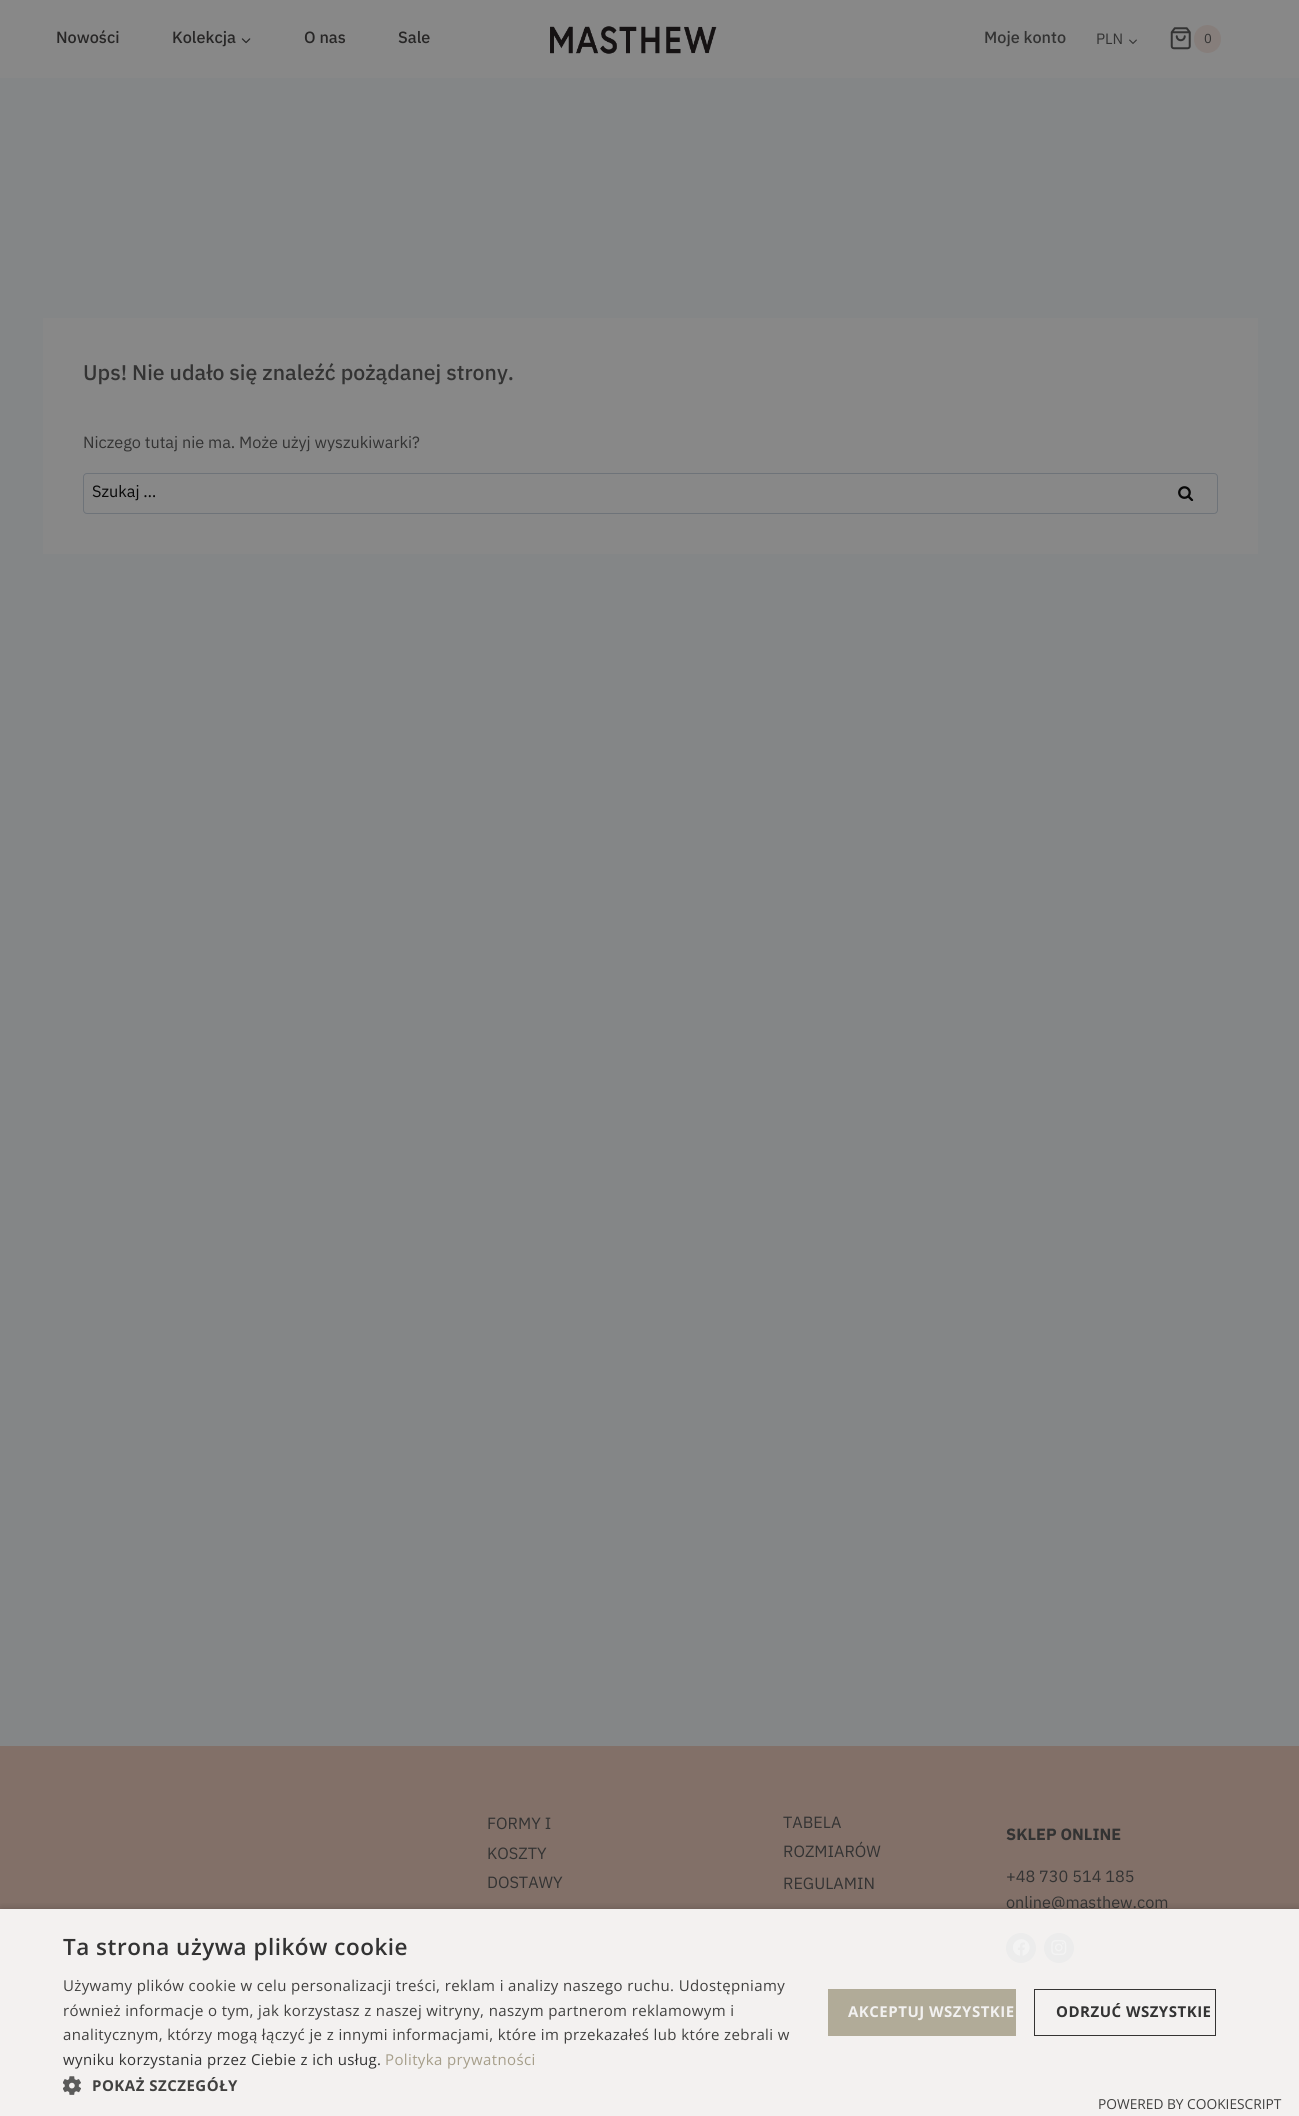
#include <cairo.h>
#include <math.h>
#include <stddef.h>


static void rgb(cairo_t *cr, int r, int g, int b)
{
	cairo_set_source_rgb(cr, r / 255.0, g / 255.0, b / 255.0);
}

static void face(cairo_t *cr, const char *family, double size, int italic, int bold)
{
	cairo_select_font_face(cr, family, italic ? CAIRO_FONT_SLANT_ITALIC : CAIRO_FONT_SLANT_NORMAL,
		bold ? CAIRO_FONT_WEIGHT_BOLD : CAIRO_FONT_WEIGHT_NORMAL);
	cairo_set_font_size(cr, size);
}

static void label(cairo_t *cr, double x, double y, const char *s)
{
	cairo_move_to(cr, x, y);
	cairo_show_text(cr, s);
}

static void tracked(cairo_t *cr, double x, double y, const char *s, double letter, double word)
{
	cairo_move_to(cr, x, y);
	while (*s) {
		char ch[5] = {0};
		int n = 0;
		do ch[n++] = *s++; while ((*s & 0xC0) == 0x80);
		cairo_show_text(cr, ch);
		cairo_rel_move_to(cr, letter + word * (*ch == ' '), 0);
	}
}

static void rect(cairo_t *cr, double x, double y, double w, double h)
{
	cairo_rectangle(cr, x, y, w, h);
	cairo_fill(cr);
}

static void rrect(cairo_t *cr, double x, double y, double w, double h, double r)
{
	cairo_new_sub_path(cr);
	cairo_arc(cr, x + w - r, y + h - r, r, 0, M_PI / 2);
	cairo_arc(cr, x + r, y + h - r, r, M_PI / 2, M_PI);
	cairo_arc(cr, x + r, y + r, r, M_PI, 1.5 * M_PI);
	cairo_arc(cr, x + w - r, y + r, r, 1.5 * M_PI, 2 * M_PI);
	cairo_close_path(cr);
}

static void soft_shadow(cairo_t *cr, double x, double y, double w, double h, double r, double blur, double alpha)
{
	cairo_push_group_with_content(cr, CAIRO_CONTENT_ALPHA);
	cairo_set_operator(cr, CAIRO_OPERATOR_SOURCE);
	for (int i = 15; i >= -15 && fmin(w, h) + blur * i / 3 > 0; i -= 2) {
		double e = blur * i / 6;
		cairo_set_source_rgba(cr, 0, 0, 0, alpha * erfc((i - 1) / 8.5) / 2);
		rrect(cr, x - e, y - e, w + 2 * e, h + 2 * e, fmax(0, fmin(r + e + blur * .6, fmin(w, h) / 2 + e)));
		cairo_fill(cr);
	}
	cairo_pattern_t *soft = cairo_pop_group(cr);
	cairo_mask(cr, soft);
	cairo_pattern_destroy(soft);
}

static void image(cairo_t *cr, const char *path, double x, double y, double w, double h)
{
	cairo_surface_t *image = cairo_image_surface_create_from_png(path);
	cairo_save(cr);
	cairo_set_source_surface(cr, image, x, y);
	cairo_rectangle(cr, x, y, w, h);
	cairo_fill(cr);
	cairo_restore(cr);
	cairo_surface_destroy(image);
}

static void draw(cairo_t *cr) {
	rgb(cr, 132, 134, 135);
	cairo_paint(cr);
	rgb(cr, 136, 136, 136);
	rect(cr, 0, 0, 1299, 78);
	face(cr, "IBM Plex Sans Medium", 16.25, 0, 0);
	rgb(cr, 39, 38, 38);
	label(cr, 56, 43, "Nowości");
	label(cr, 172, 43, "Kolekcja");
	image(cr, "image0.png", 241, 38, 10, 6);
	label(cr, 304, 43, "O nas");
	label(cr, 398, 43, "Sale");
	image(cr, "image1.png", 550, 26, 167, 28);
	rgb(cr, 51, 51, 51);
	label(cr, 984, 43, "Moje konto");
	face(cr, "IBM Plex Sans", 15, 0, 0);
	label(cr, 1096, 44, "PLN");
	image(cr, "image2.png", 1129, 39, 8, 5);
	image(cr, "image3.png", 1170, 27, 21, 23);
	rgb(cr, 134, 126, 123);
	rrect(cr, 1194, 25, 27, 28, 13.5);
	cairo_fill(cr);
	face(cr, "IBM Plex Sans", 13, 0, 0);
	rgb(cr, 51, 51, 51);
	label(cr, 1204, 43, "0");
	rgb(cr, 136, 136, 136);
	rect(cr, 43, 318, 1215, 236);
	face(cr, "IBM Plex Sans Medium", 21.25, 0, 0);
	rgb(cr, 51, 51, 51);
	label(cr, 83, 380, "Ups! Nie udało się znaleźć pożądanej strony.");
	face(cr, "IBM Plex Sans", 16.25, 0, 0);
	label(cr, 83, 448, "Niczego tutaj nie ma. Może użyj wyszukiwarki?");
	rrect(cr, 83.5, 473.5, 1134, 40, 3.5);
	rgb(cr, 110, 115, 121);
	cairo_set_line_width(cr, 1);
	cairo_stroke(cr);
	rgb(cr, 9, 9, 9);
	label(cr, 92, 497, "Szukaj …");
	image(cr, "image4.png", 1178, 486, 16, 15);
	rgb(cr, 130, 112, 104);
	rect(cr, 0, 1746, 1299, 370);
	rgb(cr, 51, 51, 51);
	label(cr, 487, 1829, "FORMY I");
	label(cr, 487, 1859, "KOSZTY");
	label(cr, 487, 1888, "DOSTAWY");
	label(cr, 783, 1828, "TABELA");
	label(cr, 783, 1857, "ROZMIARÓW");
	label(cr, 783, 1889, "REGULAMIN");
	face(cr, "IBM Plex Sans", 16.25, 0, 1);
	label(cr, 1006, 1840, "SKLEP ONLINE");
	face(cr, "IBM Plex Sans", 16.25, 0, 0);
	label(cr, 1006, 1882, "+48 730 514 185");
	label(cr, 1006, 1908, "online@masthew.com");
	rgb(cr, 60, 60, 60);
	cairo_new_path(cr);
	cairo_arc(cr, 1021, 1948, 15, 0, 2 * M_PI);
	cairo_fill(cr);
	image(cr, "image5.png", 1012, 1939, 18, 17);
	cairo_arc(cr, 1059, 1948, 15, 0, 2 * M_PI);
	cairo_fill(cr);
	image(cr, "image6.png", 1051, 1940, 16, 15);
	cairo_save(cr);
	cairo_rectangle(cr, 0, 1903, 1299, 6);
	cairo_clip(cr);
	rgb(cr, 0, 0, 0);
	soft_shadow(cr, 1, 1911, 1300, 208, 0, 5, 0.32);
	cairo_restore(cr);
	cairo_set_source_rgba(cr, 1, 1, 1, 0.9);
	rect(cr, 0, 1909, 1299, 207);
	face(cr, "Open Sans SemiBold", 22.5, 0, 0);
	rgb(cr, 51, 51, 51);
	tracked(cr, 63, 1955, "Ta strona używa plików cookie", 0.5, 0);
	face(cr, "Open Sans", 15, 0, 0);
	rgb(cr, 65, 65, 64);
	tracked(cr, 63, 1991, "Używamy plików cookie w celu personalizacji treści, reklam i analizy naszego ruchu. Udostępniamy", 0.38, 0);
	tracked(cr, 63, 2016, "również informacje o tym, jak korzystasz z naszej witryny, naszym partnerom reklamowym i", 0.38, 0);
	tracked(cr, 63, 2040, "analitycznym, którzy mogą łączyć je z innymi informacjami, które im przekazałeś lub które zebrali w", 0.38, 0);
	rgb(cr, 51, 51, 51);
	tracked(cr, 63, 2065, "wyniku korzystania przez Ciebie z ich usług.", 0.38, 0);
	rgb(cr, 166, 158, 138);
	tracked(cr, 385, 2065, "Polityka prywatności", 0.38, 0);
	image(cr, "image7.png", 63, 2076, 18, 19);
	face(cr, "Open Sans", 15, 0, 1);
	rgb(cr, 65, 65, 64);
	tracked(cr, 92, 2091, "POKAŻ SZCZEGÓŁY", 0.5, 0);
	cairo_set_source_rgba(cr, 0.667, 0.639, 0.557, 0.9);
	rect(cr, 828, 1989, 188, 47);
	rgb(cr, 242, 241, 240);
	tracked(cr, 848, 2017, "AKCEPTUJ WSZYSTKIE", 0.5, 0);
	cairo_rectangle(cr, 1034.5, 1989.5, 181, 46);
	rgb(cr, 53, 52, 51);
	cairo_stroke(cr);
	rgb(cr, 51, 51, 51);
	tracked(cr, 1056, 2017, "ODRZUĆ WSZYSTKIE", 0.5, 0);
	face(cr, "Open Sans", 13.75, 0, 0);
	rgb(cr, 65, 65, 64);
	label(cr, 1098, 2109, "POWERED BY COOKIESCRIPT");
}

int main(void) {
	cairo_surface_t *surface = cairo_image_surface_create(CAIRO_FORMAT_RGB24, 1299, 2116);
	cairo_t *cr = cairo_create(surface);
	cairo_font_options_t *options = cairo_font_options_create();
	cairo_font_options_set_hint_metrics(options, CAIRO_HINT_METRICS_OFF);
	cairo_font_options_set_hint_style(options, CAIRO_HINT_STYLE_NONE);
	cairo_set_font_options(cr, options);
	cairo_set_miter_limit(cr, 4);
	draw(cr);
	cairo_surface_write_to_png(surface, "render.png");
	cairo_font_options_destroy(options);
	cairo_destroy(cr);
	cairo_surface_destroy(surface);
	return 0;
}
